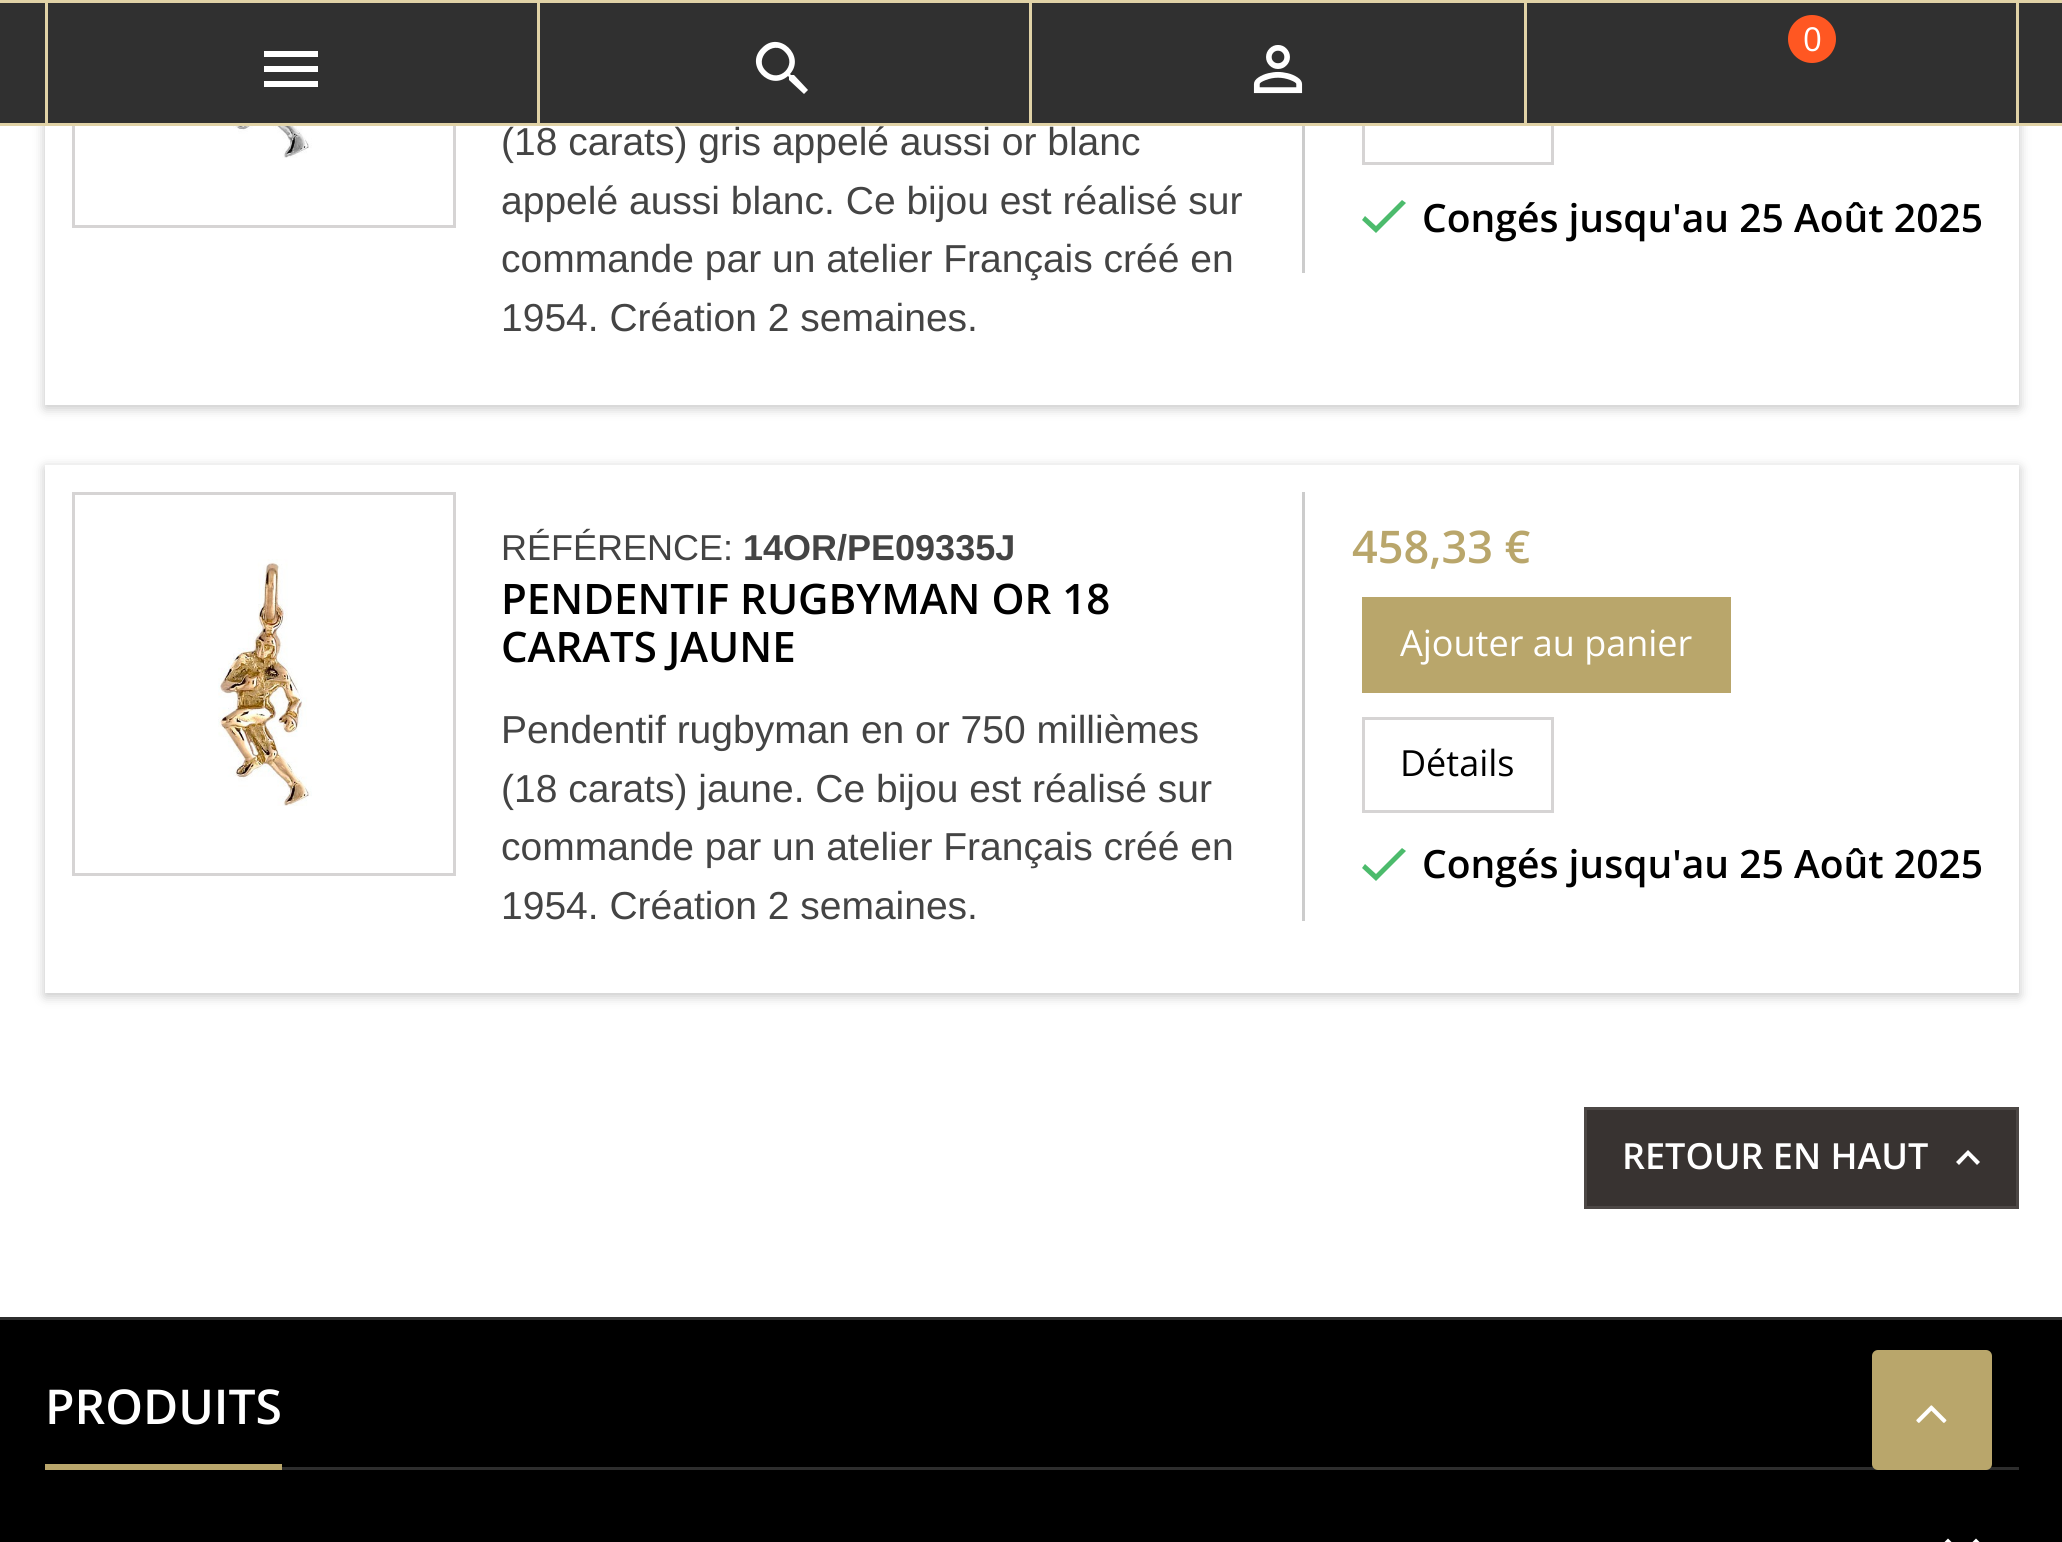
#include <cairo.h>
#include <math.h>
#include <stddef.h>


static void rgb(cairo_t *cr, int r, int g, int b)
{
	cairo_set_source_rgb(cr, r / 255.0, g / 255.0, b / 255.0);
}

static void face(cairo_t *cr, const char *family, double size, int italic, int bold)
{
	cairo_select_font_face(cr, family, italic ? CAIRO_FONT_SLANT_ITALIC : CAIRO_FONT_SLANT_NORMAL,
		bold ? CAIRO_FONT_WEIGHT_BOLD : CAIRO_FONT_WEIGHT_NORMAL);
	cairo_set_font_size(cr, size);
}

static void label(cairo_t *cr, double x, double y, const char *s)
{
	cairo_move_to(cr, x, y);
	cairo_show_text(cr, s);
}

static void rect(cairo_t *cr, double x, double y, double w, double h)
{
	cairo_rectangle(cr, x, y, w, h);
	cairo_fill(cr);
}

static void rrect(cairo_t *cr, double x, double y, double w, double h, double r)
{
	cairo_new_sub_path(cr);
	cairo_arc(cr, x + w - r, y + h - r, r, 0, M_PI / 2);
	cairo_arc(cr, x + r, y + h - r, r, M_PI / 2, M_PI);
	cairo_arc(cr, x + r, y + r, r, M_PI, 1.5 * M_PI);
	cairo_arc(cr, x + w - r, y + r, r, 1.5 * M_PI, 2 * M_PI);
	cairo_close_path(cr);
}

static void soft_shadow(cairo_t *cr, double x, double y, double w, double h, double r, double blur, double alpha)
{
	cairo_push_group_with_content(cr, CAIRO_CONTENT_ALPHA);
	cairo_set_operator(cr, CAIRO_OPERATOR_SOURCE);
	for (int i = 15; i >= -15 && fmin(w, h) + blur * i / 3 > 0; i -= 2) {
		double e = blur * i / 6;
		cairo_set_source_rgba(cr, 0, 0, 0, alpha * erfc((i - 1) / 8.5) / 2);
		rrect(cr, x - e, y - e, w + 2 * e, h + 2 * e, fmax(0, fmin(r + e + blur * .6, fmin(w, h) / 2 + e)));
		cairo_fill(cr);
	}
	cairo_pattern_t *soft = cairo_pop_group(cr);
	cairo_mask(cr, soft);
	cairo_pattern_destroy(soft);
}

static void image(cairo_t *cr, const char *path, double x, double y, double w, double h)
{
	cairo_surface_t *image = cairo_image_surface_create_from_png(path);
	cairo_save(cr);
	cairo_set_source_surface(cr, image, x, y);
	cairo_rectangle(cr, x, y, w, h);
	cairo_fill(cr);
	cairo_restore(cr);
	cairo_surface_destroy(image);
}

static void draw(cairo_t *cr) {
	rgb(cr, 255, 255, 255);
	cairo_paint(cr);
	cairo_save(cr);
	cairo_set_fill_rule(cr, CAIRO_FILL_RULE_EVEN_ODD);
	cairo_new_path(cr);
	cairo_move_to(cr, 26, 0);
	cairo_line_to(cr, 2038, 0);
	cairo_line_to(cr, 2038, 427);
	cairo_line_to(cr, 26, 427);
	cairo_close_path(cr);
	cairo_move_to(cr, 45, -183);
	cairo_line_to(cr, 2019, -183);
	cairo_line_to(cr, 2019, 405);
	cairo_line_to(cr, 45, 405);
	cairo_close_path(cr);
	cairo_clip(cr);
	rgb(cr, 0, 0, 0);
	soft_shadow(cr, 45, -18, 1974, 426, 0, 6, 0.24);
	cairo_restore(cr);
	cairo_rectangle(cr, 73.5, -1.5, 381, 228);
	rgb(cr, 214, 212, 212);
	cairo_set_line_width(cr, 3);
	cairo_stroke(cr);
	cairo_rectangle(cr, 1363.5, 70.5, 189, 93);
	cairo_stroke(cr);
	rgb(cr, 48, 48, 48);
	rect(cr, 0, 3, 2062, 120);
	rgb(cr, 224, 210, 166);
	rect(cr, 0, 0, 2062, 3);
	rect(cr, 0, 123, 2062, 3);
	rect(cr, 537, 3, 3, 120);
	rect(cr, 45, 3, 3, 120);
	rgb(cr, 255, 255, 255);
	cairo_new_path(cr);
	cairo_move_to(cr, 264, 51);
	cairo_line_to(cr, 318, 51);
	cairo_line_to(cr, 318, 57);
	cairo_line_to(cr, 264, 57);
	cairo_close_path(cr);
	cairo_move_to(cr, 264, 72);
	cairo_line_to(cr, 264, 66);
	cairo_line_to(cr, 318, 66);
	cairo_line_to(cr, 318, 72);
	cairo_close_path(cr);
	cairo_move_to(cr, 264, 87);
	cairo_line_to(cr, 264, 81);
	cairo_line_to(cr, 318, 81);
	cairo_line_to(cr, 318, 87);
	cairo_close_path(cr);
	cairo_fill(cr);
	rgb(cr, 224, 210, 166);
	rect(cr, 1029, 3, 3, 120);
	rgb(cr, 255, 255, 255);
	cairo_new_path(cr);
	cairo_move_to(cr, 766, 71);
	cairo_curve_to(cr, 779, 84, 798, 65, 785, 52);
	cairo_curve_to(cr, 773, 39, 753, 59, 766, 71);
	cairo_close_path(cr);
	cairo_move_to(cr, 794, 75);
	cairo_line_to(cr, 808, 90);
	cairo_line_to(cr, 804, 94);
	cairo_line_to(cr, 789, 80);
	cairo_line_to(cr, 789, 77);
	cairo_line_to(cr, 788, 76);
	cairo_curve_to(cr, 770, 92, 744, 65, 762, 48);
	cairo_curve_to(cr, 779, 30, 806, 56, 790, 74);
	cairo_line_to(cr, 791, 75);
	cairo_close_path(cr);
	cairo_fill(cr);
	rgb(cr, 224, 210, 166);
	rect(cr, 1524, 3, 3, 120);
	image(cr, "image0.png", 1253, 45, 50, 49);
	rect(cr, 2016, 3, 3, 120);
	rgb(cr, 255, 87, 34);
	cairo_arc(cr, 1812, 39, 24, 0, 2 * M_PI);
	cairo_fill(cr);
	face(cr, "Open Sans", 33, 0, 0);
	rgb(cr, 255, 255, 255);
	label(cr, 1803, 51, "0");
	image(cr, "image1.png", 218, 126, 94, 32);
	face(cr, "Liberation Sans", 39, 0, 0);
	rgb(cr, 68, 68, 68);
	label(cr, 501, 155, "(18 carats) gris appelé aussi or blanc");
	label(cr, 501, 214, "appelé aussi blanc. Ce bijou est réalisé sur");
	label(cr, 501, 272, "commande par un atelier Français créé en");
	label(cr, 501, 331, "1954. Création 2 semaines.");
	rgb(cr, 204, 204, 204);
	rect(cr, 1302, 126, 3, 147);
	rgb(cr, 76, 187, 108);
	cairo_new_path(cr);
	cairo_move_to(cr, 1376, 226);
	cairo_line_to(cr, 1402, 200);
	cairo_line_to(cr, 1406, 203);
	cairo_line_to(cr, 1376, 233);
	cairo_line_to(cr, 1362, 220);
	cairo_line_to(cr, 1365, 216);
	cairo_close_path(cr);
	cairo_fill(cr);
	face(cr, "Open Sans SemiBold", 39, 0, 0);
	rgb(cr, 0, 0, 0);
	label(cr, 1422, 232, "Congés jusqu'au 25 Août 2025");
	cairo_save(cr);
	cairo_set_fill_rule(cr, CAIRO_FILL_RULE_EVEN_ODD);
	cairo_new_path(cr);
	cairo_move_to(cr, 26, 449);
	cairo_line_to(cr, 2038, 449);
	cairo_line_to(cr, 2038, 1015);
	cairo_line_to(cr, 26, 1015);
	cairo_close_path(cr);
	cairo_move_to(cr, 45, 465);
	cairo_line_to(cr, 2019, 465);
	cairo_line_to(cr, 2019, 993);
	cairo_line_to(cr, 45, 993);
	cairo_close_path(cr);
	cairo_clip(cr);
	rgb(cr, 0, 0, 0);
	soft_shadow(cr, 45, 468, 1974, 528, 0, 6, 0.24);
	cairo_restore(cr);
	cairo_rectangle(cr, 73.5, 493.5, 381, 381);
	rgb(cr, 214, 212, 212);
	cairo_stroke(cr);
	image(cr, "image2.png", 218, 559, 94, 247);
	face(cr, "Liberation Sans", 36, 0, 0);
	rgb(cr, 68, 68, 68);
	label(cr, 501, 560, "RÉFÉRENCE:");
	face(cr, "Liberation Sans", 36, 0, 1);
	label(cr, 743, 560, "14OR/PE09335J");
	face(cr, "Open Sans SemiBold", 42, 0, 0);
	rgb(cr, 0, 0, 0);
	label(cr, 501, 614, "PENDENTIF RUGBYMAN OR 18");
	label(cr, 501, 662, "CARATS JAUNE");
	face(cr, "Liberation Sans", 39, 0, 0);
	rgb(cr, 68, 68, 68);
	label(cr, 501, 743, "Pendentif rugbyman en or 750 millièmes");
	label(cr, 501, 802, "(18 carats) jaune. Ce bijou est réalisé sur");
	label(cr, 501, 860, "commande par un atelier Français créé en");
	label(cr, 501, 919, "1954. Création 2 semaines.");
	rgb(cr, 204, 204, 204);
	rect(cr, 1302, 492, 3, 429);
	face(cr, "Open Sans SemiBold", 45, 0, 0);
	rgb(cr, 185, 166, 107);
	label(cr, 1352, 563, "458,33 €");
	rect(cr, 1362, 597, 369, 96);
	face(cr, "Open Sans", 36, 0, 0);
	rgb(cr, 255, 255, 255);
	label(cr, 1400, 656, "Ajouter au panier");
	cairo_rectangle(cr, 1363.5, 718.5, 189, 93);
	rgb(cr, 214, 212, 212);
	cairo_stroke(cr);
	rgb(cr, 0, 0, 0);
	label(cr, 1400, 776, "Détails");
	rgb(cr, 76, 187, 108);
	cairo_new_path(cr);
	cairo_move_to(cr, 1376, 874);
	cairo_line_to(cr, 1402, 848);
	cairo_line_to(cr, 1406, 851);
	cairo_line_to(cr, 1376, 881);
	cairo_line_to(cr, 1362, 868);
	cairo_line_to(cr, 1365, 864);
	cairo_close_path(cr);
	cairo_fill(cr);
	face(cr, "Open Sans SemiBold", 39, 0, 0);
	rgb(cr, 0, 0, 0);
	label(cr, 1422, 878, "Congés jusqu'au 25 Août 2025");
	rgb(cr, 56, 51, 49);
	cairo_rectangle(cr, 1585.5, 1108.5, 432, 99);
	cairo_fill_preserve(cr);
	rgb(cr, 76, 71, 69);
	cairo_stroke(cr);
	face(cr, "Open Sans SemiBold", 36, 0, 0);
	rgb(cr, 255, 255, 255);
	label(cr, 1622, 1169, "RETOUR EN HAUT");
	cairo_new_path(cr);
	cairo_move_to(cr, 1959, 1165);
	cairo_line_to(cr, 1956, 1162);
	cairo_line_to(cr, 1968, 1150);
	cairo_line_to(cr, 1980, 1162);
	cairo_line_to(cr, 1977, 1165);
	cairo_line_to(cr, 1968, 1155.5);
	cairo_close_path(cr);
	cairo_fill(cr);
	rgb(cr, 0, 0, 0);
	rect(cr, 0, 1320, 2062, 222);
	rgb(cr, 45, 45, 45);
	rect(cr, 0, 1317, 2062, 3);
	rect(cr, 282, 1467, 1737, 3);
	rgb(cr, 185, 166, 107);
	rect(cr, 45, 1464, 237, 6);
	face(cr, "Open Sans SemiBold", 48, 0, 0);
	rgb(cr, 255, 255, 255);
	label(cr, 45, 1424, "PRODUITS");
	rgb(cr, 185, 166, 107);
	rrect(cr, 1872, 1350, 120, 120, 6);
	cairo_fill(cr);
	image(cr, "image3.png", 1916, 1405, 31, 18);
	rgb(cr, 255, 255, 255);
	cairo_new_path(cr);
	cairo_move_to(cr, 1948, 1538.5);
	cairo_line_to(cr, 1962, 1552.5);
	cairo_line_to(cr, 1976, 1538.5);
	cairo_line_to(cr, 1980, 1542.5);
	cairo_line_to(cr, 1962, 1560.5);
	cairo_line_to(cr, 1944, 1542.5);
	cairo_close_path(cr);
	cairo_fill(cr);
}

int main(void) {
	cairo_surface_t *surface = cairo_image_surface_create(CAIRO_FORMAT_RGB24, 2062, 1542);
	cairo_t *cr = cairo_create(surface);
	cairo_font_options_t *options = cairo_font_options_create();
	cairo_font_options_set_hint_metrics(options, CAIRO_HINT_METRICS_OFF);
	cairo_font_options_set_hint_style(options, CAIRO_HINT_STYLE_NONE);
	cairo_set_font_options(cr, options);
	cairo_set_miter_limit(cr, 4);
	draw(cr);
	cairo_surface_write_to_png(surface, "render.png");
	cairo_font_options_destroy(options);
	cairo_destroy(cr);
	cairo_surface_destroy(surface);
	return 0;
}
